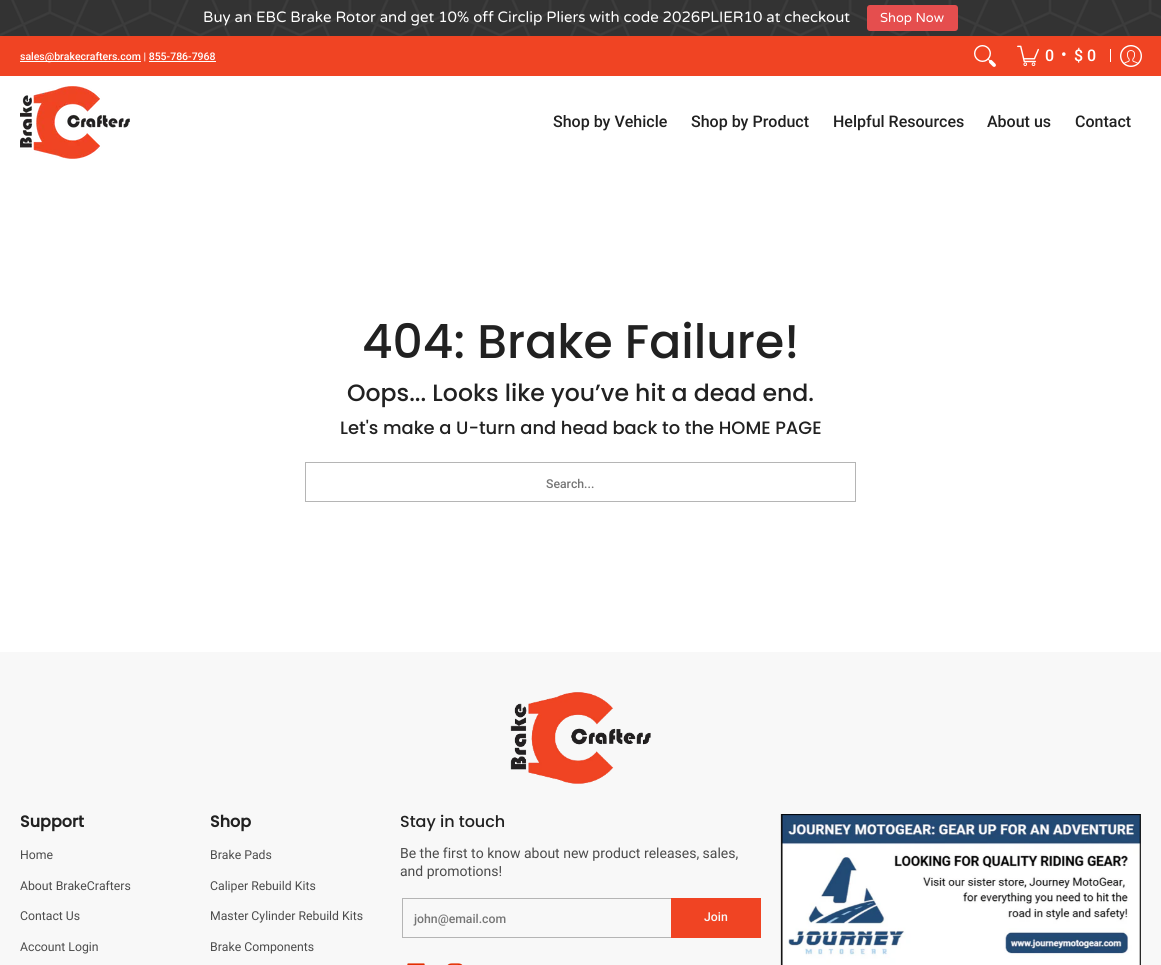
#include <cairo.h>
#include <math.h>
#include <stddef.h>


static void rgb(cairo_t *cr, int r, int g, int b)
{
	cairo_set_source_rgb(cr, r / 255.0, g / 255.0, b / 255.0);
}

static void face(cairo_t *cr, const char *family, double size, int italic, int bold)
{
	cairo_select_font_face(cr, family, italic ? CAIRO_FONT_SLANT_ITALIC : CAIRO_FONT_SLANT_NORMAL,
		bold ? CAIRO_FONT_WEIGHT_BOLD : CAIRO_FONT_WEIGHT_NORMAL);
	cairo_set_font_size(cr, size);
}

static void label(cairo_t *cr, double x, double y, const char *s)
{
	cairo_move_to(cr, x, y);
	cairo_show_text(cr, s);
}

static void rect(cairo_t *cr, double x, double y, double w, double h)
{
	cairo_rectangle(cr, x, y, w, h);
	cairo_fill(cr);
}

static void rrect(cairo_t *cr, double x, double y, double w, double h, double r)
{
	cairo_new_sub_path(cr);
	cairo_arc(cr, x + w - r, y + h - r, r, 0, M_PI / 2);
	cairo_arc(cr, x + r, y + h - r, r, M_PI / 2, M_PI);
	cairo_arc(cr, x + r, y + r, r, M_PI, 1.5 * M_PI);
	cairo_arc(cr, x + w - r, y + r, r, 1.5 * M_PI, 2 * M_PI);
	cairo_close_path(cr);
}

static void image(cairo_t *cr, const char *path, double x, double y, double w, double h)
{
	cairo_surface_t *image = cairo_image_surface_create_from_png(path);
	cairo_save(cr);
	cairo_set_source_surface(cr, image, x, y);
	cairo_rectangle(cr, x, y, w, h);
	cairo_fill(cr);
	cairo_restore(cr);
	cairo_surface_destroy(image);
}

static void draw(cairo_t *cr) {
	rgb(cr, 255, 255, 255);
	cairo_paint(cr);
	image(cr, "image0.png", 0, 0, 1161, 36);
	face(cr, "Varela Round", 15, 0, 0);
	rgb(cr, 255, 255, 255);
	label(cr, 203, 22, "Buy an EBC Brake Rotor and get 10% off Circlip Pliers with code 2026PLIER10 at checkout");
	rgb(cr, 229, 78, 78);
	rrect(cr, 867, 5, 91, 26, 3);
	cairo_fill(cr);
	face(cr, "Varela Round", 13, 0, 0);
	rgb(cr, 255, 255, 255);
	label(cr, 880, 22, "Shop Now");
	rgb(cr, 240, 68, 35);
	rect(cr, 0, 36, 1161, 40);
	rgb(cr, 255, 255, 255);
	rect(cr, 20, 61, 121, 1);
	face(cr, "Roboto Medium", 10.5, 0, 0);
	label(cr, 20, 60, "sales@brakecrafters.com | 855-786-7968");
	rect(cr, 149, 61, 67, 1);
	image(cr, "image1.png", 974, 45, 22, 22);
	image(cr, "image2.png", 1017, 45, 22, 22);
	face(cr, "Roboto Medium", 16, 0, 0);
	label(cr, 1045, 61, "0");
	label(cr, 1061, 60, "•");
	label(cr, 1074, 61, "$ 0");
	rect(cr, 1110, 49, 1, 13);
	image(cr, "image3.png", 1120, 45, 22, 22);
	image(cr, "image4.png", 20, 86, 110, 73);
	rgb(cr, 33, 33, 33);
	label(cr, 553, 127, "Shop by Vehicle");
	label(cr, 691, 127, "Shop by Product");
	label(cr, 833, 127, "Helpful Resources");
	label(cr, 987, 127, "About us");
	label(cr, 1075, 127, "Contact");
	face(cr, "Poppins Medium", 47.25, 0, 0);
	label(cr, 362, 358, "404: Brake Failure!");
	face(cr, "Poppins Medium", 23.6, 0, 0);
	label(cr, 347, 401, "Oops... Looks like you’ve hit a dead end.");
	face(cr, "Poppins Medium", 17.9, 0, 0);
	label(cr, 340, 434, "Let's make a U-turn and head back to the HOME PAGE");
	cairo_rectangle(cr, 305.5, 462.5, 550, 39);
	rgb(cr, 181, 181, 181);
	cairo_set_line_width(cr, 1);
	cairo_stroke(cr);
	face(cr, "Roboto Medium", 12.25, 0, 0);
	rgb(cr, 118, 118, 118);
	label(cr, 546, 488, "Search...");
	rgb(cr, 248, 248, 248);
	rect(cr, 0, 652, 1161, 313);
	image(cr, "image5.png", 510, 692, 141, 92);
	face(cr, "Poppins", 16, 0, 1);
	rgb(cr, 33, 33, 33);
	label(cr, 20, 827, "Support");
	face(cr, "Roboto", 12.25, 0, 0);
	rgb(cr, 75, 75, 75);
	label(cr, 20, 859, "Home");
	label(cr, 20, 890, "About BrakeCrafters");
	label(cr, 20, 920, "Contact Us");
	label(cr, 20, 951, "Account Login");
	face(cr, "Poppins", 16, 0, 1);
	rgb(cr, 33, 33, 33);
	label(cr, 210, 827, "Shop");
	face(cr, "Roboto", 12.25, 0, 0);
	rgb(cr, 75, 75, 75);
	label(cr, 210, 859, "Brake Pads");
	label(cr, 210, 890, "Caliper Rebuild Kits");
	label(cr, 210, 920, "Master Cylinder Rebuild Kits");
	label(cr, 210, 951, "Brake Components");
	face(cr, "Poppins Medium", 16, 0, 0);
	rgb(cr, 33, 33, 33);
	label(cr, 400, 827, "Stay in touch");
	face(cr, "Roboto", 14, 0, 0);
	rgb(cr, 75, 75, 75);
	label(cr, 400, 858, "Be the first to know about new product releases, sales,");
	label(cr, 400, 876, "and promotions!");
	cairo_rectangle(cr, 402.5, 898.5, 270, 39);
	rgb(cr, 181, 181, 181);
	cairo_stroke(cr);
	face(cr, "Roboto Medium", 12.25, 0, 0);
	rgb(cr, 118, 118, 118);
	label(cr, 414, 923, "john@email.com");
	rgb(cr, 240, 68, 35);
	rect(cr, 671, 898, 90, 40);
	rgb(cr, 248, 248, 248);
	label(cr, 704, 921, "Join");
	image(cr, "image6.png", 407, 963, 18, 2);
	image(cr, "image7.png", 447, 963, 16, 2);
	image(cr, "image8.png", 780, 814, 361, 151);
}

int main(void) {
	cairo_surface_t *surface = cairo_image_surface_create(CAIRO_FORMAT_RGB24, 1161, 965);
	cairo_t *cr = cairo_create(surface);
	cairo_font_options_t *options = cairo_font_options_create();
	cairo_font_options_set_hint_metrics(options, CAIRO_HINT_METRICS_OFF);
	cairo_font_options_set_hint_style(options, CAIRO_HINT_STYLE_NONE);
	cairo_set_font_options(cr, options);
	cairo_set_miter_limit(cr, 4);
	draw(cr);
	cairo_surface_write_to_png(surface, "render.png");
	cairo_font_options_destroy(options);
	cairo_destroy(cr);
	cairo_surface_destroy(surface);
	return 0;
}
